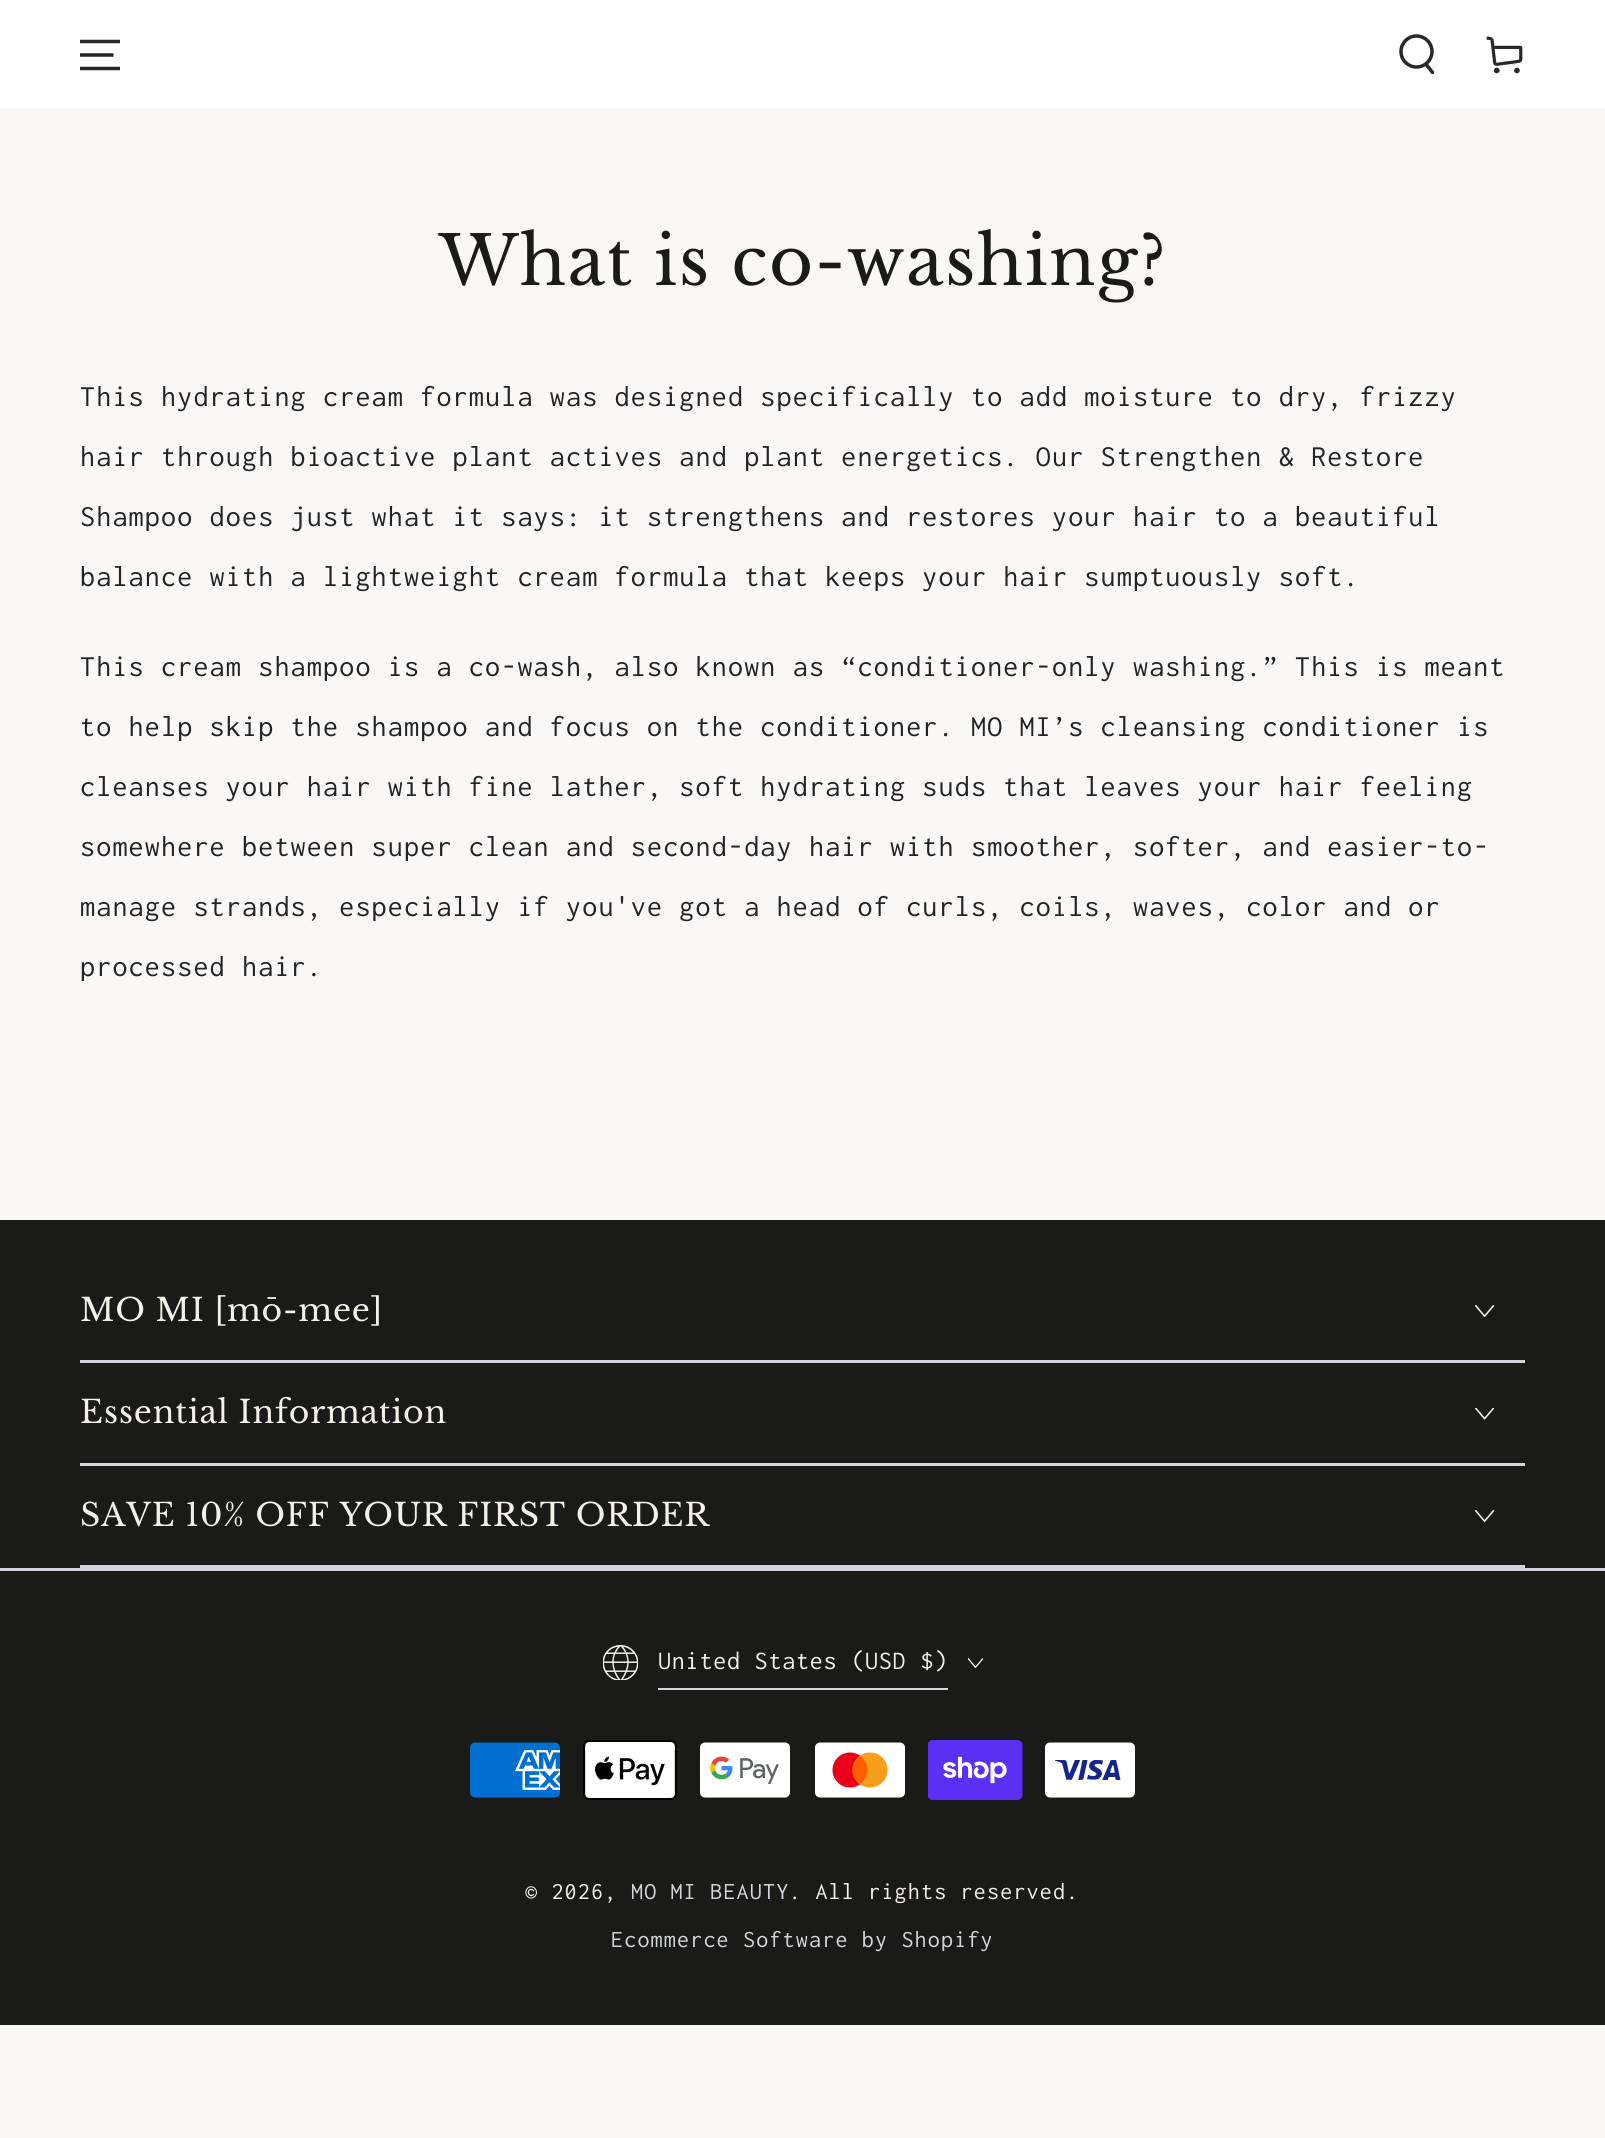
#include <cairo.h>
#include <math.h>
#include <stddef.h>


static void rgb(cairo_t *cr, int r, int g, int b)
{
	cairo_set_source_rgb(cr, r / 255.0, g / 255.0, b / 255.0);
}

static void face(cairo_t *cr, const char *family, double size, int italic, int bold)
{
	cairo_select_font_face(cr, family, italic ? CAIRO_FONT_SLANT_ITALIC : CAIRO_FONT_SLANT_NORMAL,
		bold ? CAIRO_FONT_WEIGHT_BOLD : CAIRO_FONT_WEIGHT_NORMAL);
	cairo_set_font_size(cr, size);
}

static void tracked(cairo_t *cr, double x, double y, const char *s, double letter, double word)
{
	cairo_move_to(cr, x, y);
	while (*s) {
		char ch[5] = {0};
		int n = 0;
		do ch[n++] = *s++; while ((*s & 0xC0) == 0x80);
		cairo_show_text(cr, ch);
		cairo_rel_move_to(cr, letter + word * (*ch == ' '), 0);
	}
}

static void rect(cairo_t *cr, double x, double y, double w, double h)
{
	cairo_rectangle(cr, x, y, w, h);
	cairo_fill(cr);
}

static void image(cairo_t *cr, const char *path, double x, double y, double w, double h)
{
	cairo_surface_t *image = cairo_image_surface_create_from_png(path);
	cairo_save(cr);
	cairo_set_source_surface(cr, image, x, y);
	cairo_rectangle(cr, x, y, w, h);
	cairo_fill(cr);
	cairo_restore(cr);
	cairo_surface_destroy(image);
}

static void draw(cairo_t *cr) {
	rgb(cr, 249, 248, 246);
	cairo_paint(cr);
	rgb(cr, 255, 255, 255);
	rect(cr, 0, 0, 1605, 108);
	cairo_new_path(cr);
	cairo_move_to(cr, 80, 68.5);
	cairo_line_to(cr, 120, 68.5);
	cairo_move_to(cr, 80, 55);
	cairo_line_to(cr, 113.5, 55);
	cairo_move_to(cr, 80, 41.5);
	cairo_line_to(cr, 120, 41.5);
	rgb(cr, 40, 40, 40);
	cairo_set_line_width(cr, 3.5);
	cairo_stroke(cr);
	cairo_arc(cr, 1416.5, 51.5, 15.5, 0, 2 * M_PI);
	cairo_stroke(cr);
	cairo_new_path(cr);
	cairo_move_to(cr, 1426, 64);
	cairo_line_to(cr, 1432.5, 72.5);
	cairo_set_line_cap(cr, CAIRO_LINE_CAP_ROUND);
	cairo_stroke(cr);
	image(cr, "image0.png", 1486, 36, 37, 38);
	face(cr, "Libre Baskerville", 67.5, 0, 0);
	rgb(cr, 26, 27, 24);
	tracked(cr, 439, 285, "What is co-washing?", 1.4, 0);
	face(cr, "Inconsolata", 30, 0, 0);
	rgb(cr, 33, 35, 38);
	tracked(cr, 80, 406, "This hydrating cream formula was designed specifically to add moisture to dry, frizzy", 1.2, 0);
	tracked(cr, 80, 466, "hair through bioactive plant actives and plant energetics. Our Strengthen & Restore", 1.2, 0);
	tracked(cr, 80, 526, "Shampoo does just what it says: it strengthens and restores your hair to a beautiful", 1.2, 0);
	tracked(cr, 80, 586, "balance with a lightweight cream formula that keeps your hair sumptuously soft.", 1.2, 0);
	tracked(cr, 80, 676, "This cream shampoo is a co-wash, also known as “conditioner-only washing.” This is meant", 1.2, 0);
	tracked(cr, 80, 736, "to help skip the shampoo and focus on the conditioner. MO MI’s cleansing conditioner is", 1.2, 0);
	tracked(cr, 80, 796, "cleanses your hair with fine lather, soft hydrating suds that leaves your hair feeling", 1.2, 0);
	tracked(cr, 80, 856, "somewhere between super clean and second-day hair with smoother, softer, and easier-to-", 1.2, 0);
	tracked(cr, 80, 916, "manage strands, especially if you've got a head of curls, coils, waves, color and or", 1.2, 0);
	tracked(cr, 80, 976, "processed hair.", 1.2, 0);
	rgb(cr, 26, 27, 24);
	rect(cr, 0, 1220, 1605, 805);
	rgb(cr, 210, 213, 217);
	rect(cr, 80, 1360, 1445, 3);
	face(cr, "Libre Baskerville", 31.5, 0, 0);
	rgb(cr, 242, 240, 233);
	tracked(cr, 80, 1321, "MO MI [mō-mee]", 0.8, 0);
	image(cr, "image1.png", 1475, 1305, 20, 12);
	rgb(cr, 210, 213, 217);
	rect(cr, 80, 1463, 1445, 3);
	rgb(cr, 242, 240, 233);
	tracked(cr, 80, 1423, "Essential Information", 0.8, 0);
	image(cr, "image2.png", 1475, 1408, 20, 12);
	rgb(cr, 210, 213, 217);
	rect(cr, 80, 1565, 1445, 3);
	rgb(cr, 242, 240, 233);
	tracked(cr, 80, 1526, "SAVE 10% OFF YOUR FIRST ORDER", 0.8, 0);
	image(cr, "image1.png", 1475, 1510, 20, 12);
	rgb(cr, 210, 213, 217);
	rect(cr, 0, 1568, 1605, 3);
	image(cr, "image3.png", 603, 1645, 35, 35);
	rect(cr, 658, 1688, 290, 2);
	face(cr, "Inconsolata", 26, 0, 0);
	rgb(cr, 242, 240, 233);
	tracked(cr, 658, 1669, "United States (USD $)", 0.8, 0);
	image(cr, "image4.png", 968, 1658, 15, 10);
	image(cr, "image5.png", 470, 1742, 90, 56);
	image(cr, "image6.png", 583, 1740, 94, 60);
	image(cr, "image7.png", 700, 1742, 90, 56);
	image(cr, "image8.png", 815, 1742, 90, 56);
	image(cr, "image9.png", 928, 1740, 95, 60);
	image(cr, "image10.png", 1045, 1742, 90, 56);
	face(cr, "Inconsolata", 24, 0, 0);
	tracked(cr, 525, 1899, "© 2026,", 1.2, 0);
	rgb(cr, 210, 213, 217);
	tracked(cr, 631, 1899, "MO MI BEAUTY", 1.2, 0);
	rgb(cr, 242, 240, 233);
	tracked(cr, 789, 1899, ". All rights reserved.", 1.2, 0);
	rgb(cr, 210, 213, 217);
	tracked(cr, 611, 1947, "Ecommerce Software by Shopify", 1.2, 0);
}

int main(void) {
	cairo_surface_t *surface = cairo_image_surface_create(CAIRO_FORMAT_RGB24, 1605, 2138);
	cairo_t *cr = cairo_create(surface);
	cairo_font_options_t *options = cairo_font_options_create();
	cairo_font_options_set_hint_metrics(options, CAIRO_HINT_METRICS_OFF);
	cairo_font_options_set_hint_style(options, CAIRO_HINT_STYLE_NONE);
	cairo_set_font_options(cr, options);
	cairo_set_miter_limit(cr, 4);
	draw(cr);
	cairo_surface_write_to_png(surface, "render.png");
	cairo_font_options_destroy(options);
	cairo_destroy(cr);
	cairo_surface_destroy(surface);
	return 0;
}
